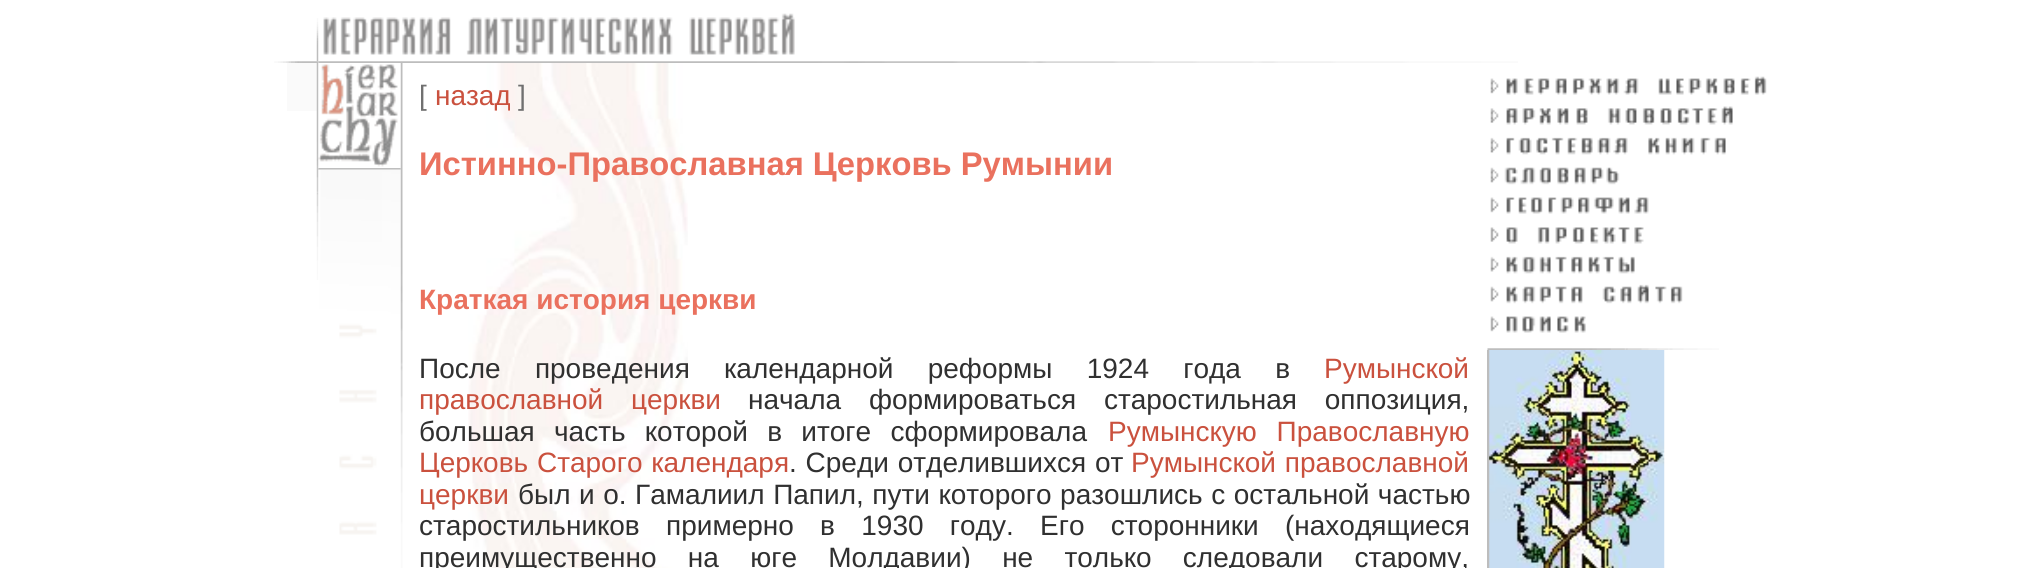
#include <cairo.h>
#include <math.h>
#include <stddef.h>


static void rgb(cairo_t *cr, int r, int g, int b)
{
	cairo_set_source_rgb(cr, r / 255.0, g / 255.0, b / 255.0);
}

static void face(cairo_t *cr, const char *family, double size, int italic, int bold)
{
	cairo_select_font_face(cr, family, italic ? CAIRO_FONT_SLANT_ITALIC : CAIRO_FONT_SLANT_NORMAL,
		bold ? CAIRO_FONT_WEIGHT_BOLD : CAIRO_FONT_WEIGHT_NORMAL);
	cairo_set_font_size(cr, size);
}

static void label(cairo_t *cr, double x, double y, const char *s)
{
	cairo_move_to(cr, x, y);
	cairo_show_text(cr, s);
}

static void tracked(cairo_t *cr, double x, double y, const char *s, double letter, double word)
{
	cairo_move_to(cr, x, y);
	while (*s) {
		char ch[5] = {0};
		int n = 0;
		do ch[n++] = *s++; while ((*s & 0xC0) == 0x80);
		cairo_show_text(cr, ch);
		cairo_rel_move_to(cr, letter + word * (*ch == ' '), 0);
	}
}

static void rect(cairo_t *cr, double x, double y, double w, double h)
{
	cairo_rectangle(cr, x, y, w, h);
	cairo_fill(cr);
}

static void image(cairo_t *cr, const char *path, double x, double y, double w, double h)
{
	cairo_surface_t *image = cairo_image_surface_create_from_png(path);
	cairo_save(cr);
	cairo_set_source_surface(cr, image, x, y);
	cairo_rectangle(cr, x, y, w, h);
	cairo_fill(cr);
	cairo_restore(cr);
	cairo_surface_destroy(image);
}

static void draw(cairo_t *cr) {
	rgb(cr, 255, 255, 255);
	cairo_paint(cr);
	image(cr, "image0.png", 316, 18, 3, 44);
	image(cr, "image1.png", 318, 13, 477, 48);
	image(cr, "image2.png", 274, 61, 45, 2);
	image(cr, "image3.png", 318, 61, 1200, 2);
	rgb(cr, 250, 250, 250);
	rect(cr, 287, 63, 30, 48);
	image(cr, "image4.png", 316, 63, 3, 217);
	image(cr, "image5.png", 318, 63, 80, 105);
	image(cr, "image6.png", 318, 168, 83, 2);
	image(cr, "image7.png", 318, 169, 83, 366);
	image(cr, "image8.png", 400, 63, 3, 505);
	image(cr, "image9.png", 468, 63, 220, 505);
	face(cr, "Liberation Sans", 28, 0, 0);
	rgb(cr, 112, 112, 112);
	label(cr, 419, 105, "[");
	rgb(cr, 202, 81, 62);
	label(cr, 435, 105, "назад");
	rgb(cr, 112, 112, 112);
	label(cr, 518, 105, "]");
	face(cr, "Liberation Sans", 32.75, 0, 1);
	rgb(cr, 234, 113, 94);
	label(cr, 419, 175, "Истинно-Православная Церковь Румынии");
	face(cr, "Liberation Sans", 28, 0, 1);
	label(cr, 419, 309, "Краткая история церкви");
	face(cr, "Liberation Sans", 28, 0, 0);
	rgb(cr, 48, 48, 48);
	tracked(cr, 419, 378, "После проведения календарной реформы 1924 года в", 0, 26.5);
	rgb(cr, 202, 81, 62);
	label(cr, 1324, 378, "Румынской");
	tracked(cr, 419, 409, "православной церкви", 0, 20);
	rgb(cr, 48, 48, 48);
	tracked(cr, 748, 409, "начала формироваться старостильная оппозиция,", 0, 20);
	tracked(cr, 419, 441, "большая часть которой в итоге сформировала", 0, 11.5);
	rgb(cr, 202, 81, 62);
	tracked(cr, 1108, 441, "Румынскую Православную", 0, 12);
	tracked(cr, 419, 472, "Церковь Старого календаря", 0, 1);
	rgb(cr, 48, 48, 48);
	tracked(cr, 789, 472, ". Среди отделившихся от", 0, 1);
	rgb(cr, 202, 81, 62);
	tracked(cr, 1131, 472, "Румынской православной", 0, 1);
	label(cr, 419, 504, "церкви");
	rgb(cr, 48, 48, 48);
	tracked(cr, 518, 504, "был и о. Гамалиил Папил, пути которого разошлись с остальной частью", 0, 0.75);
	tracked(cr, 419, 535, "старостильников примерно в 1930 году. Его сторонники (находящиеся", 0, 18.5);
	tracked(cr, 419, 567, "преимущественно на юге Молдавии) не только следовали старому,", 0, 23.5);
	image(cr, "image10.png", 1490, 76, 277, 19);
	image(cr, "image11.png", 1490, 106, 243, 19);
	image(cr, "image12.png", 1490, 137, 236, 18);
	image(cr, "image13.png", 1490, 167, 130, 18);
	image(cr, "image14.png", 1490, 197, 159, 17);
	image(cr, "image15.png", 1490, 227, 154, 17);
	image(cr, "image16.png", 1490, 256, 145, 18);
	image(cr, "image17.png", 1490, 284, 193, 20);
	image(cr, "image18.png", 1490, 316, 96, 17);
	image(cr, "image19.png", 1487, 348, 232, 2);
	rgb(cr, 189, 189, 189);
	rect(cr, 1487, 350, 3, 218);
	image(cr, "image20.png", 1489, 350, 176, 218);
}

int main(void) {
	cairo_surface_t *surface = cairo_image_surface_create(CAIRO_FORMAT_RGB24, 2029, 568);
	cairo_t *cr = cairo_create(surface);
	cairo_font_options_t *options = cairo_font_options_create();
	cairo_font_options_set_hint_metrics(options, CAIRO_HINT_METRICS_OFF);
	cairo_font_options_set_hint_style(options, CAIRO_HINT_STYLE_NONE);
	cairo_set_font_options(cr, options);
	cairo_set_miter_limit(cr, 4);
	draw(cr);
	cairo_surface_write_to_png(surface, "render.png");
	cairo_font_options_destroy(options);
	cairo_destroy(cr);
	cairo_surface_destroy(surface);
	return 0;
}
